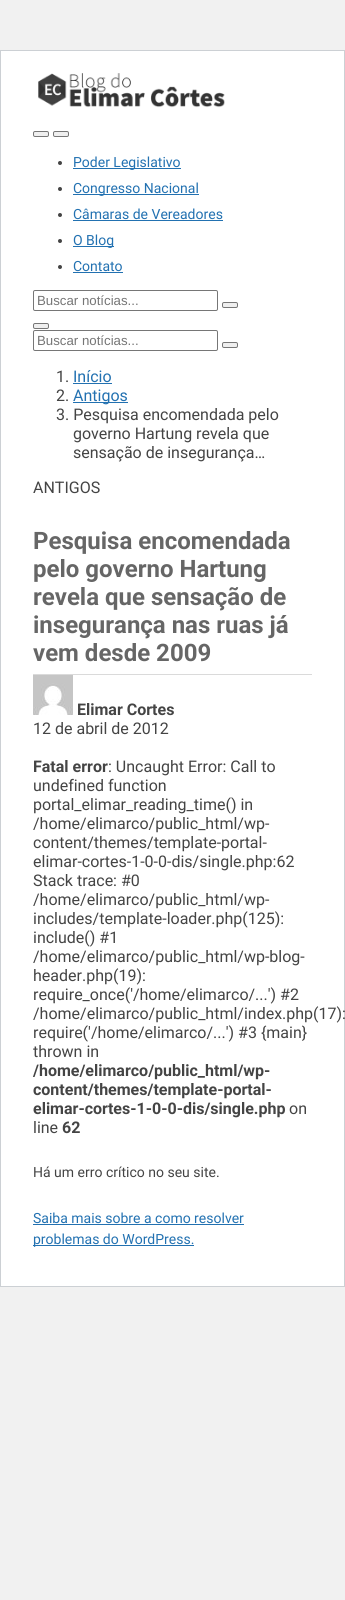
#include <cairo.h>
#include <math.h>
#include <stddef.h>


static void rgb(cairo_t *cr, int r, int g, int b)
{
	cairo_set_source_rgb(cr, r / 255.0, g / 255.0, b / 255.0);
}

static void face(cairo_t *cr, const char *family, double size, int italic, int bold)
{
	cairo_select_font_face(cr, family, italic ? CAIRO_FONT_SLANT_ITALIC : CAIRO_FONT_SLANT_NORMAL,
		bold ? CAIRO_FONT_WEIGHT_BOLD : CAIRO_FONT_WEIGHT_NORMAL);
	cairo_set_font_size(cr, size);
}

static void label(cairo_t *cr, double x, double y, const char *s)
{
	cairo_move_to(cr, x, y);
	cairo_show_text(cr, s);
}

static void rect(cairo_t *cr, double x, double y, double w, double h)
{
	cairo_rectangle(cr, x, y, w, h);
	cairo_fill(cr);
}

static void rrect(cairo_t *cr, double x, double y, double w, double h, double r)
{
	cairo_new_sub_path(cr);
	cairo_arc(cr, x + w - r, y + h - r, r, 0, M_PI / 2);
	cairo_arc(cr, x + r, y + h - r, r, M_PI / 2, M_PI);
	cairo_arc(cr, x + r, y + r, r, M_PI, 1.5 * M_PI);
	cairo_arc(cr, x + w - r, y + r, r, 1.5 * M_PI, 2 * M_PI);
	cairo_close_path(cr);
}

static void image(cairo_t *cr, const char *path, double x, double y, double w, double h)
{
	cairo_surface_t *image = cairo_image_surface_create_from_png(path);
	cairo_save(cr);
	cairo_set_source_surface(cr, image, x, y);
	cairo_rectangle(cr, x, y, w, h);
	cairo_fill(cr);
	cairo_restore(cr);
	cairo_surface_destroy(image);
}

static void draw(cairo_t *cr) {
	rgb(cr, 241, 241, 241);
	cairo_paint(cr);
	rgb(cr, 255, 255, 255);
	cairo_rectangle(cr, 0.5, 50.5, 344, 1236);
	cairo_fill_preserve(cr);
	rgb(cr, 204, 208, 212);
	cairo_set_line_width(cr, 1);
	cairo_stroke(cr);
	image(cr, "image0.png", 38, 73, 187, 35);
	rgb(cr, 239, 239, 239);
	rrect(cr, 33.5, 131.5, 15, 5, 1.5);
	cairo_fill_preserve(cr);
	rgb(cr, 118, 118, 118);
	cairo_stroke(cr);
	rgb(cr, 239, 239, 239);
	rrect(cr, 53.5, 131.5, 15, 5, 1.5);
	cairo_fill_preserve(cr);
	rgb(cr, 118, 118, 118);
	cairo_stroke(cr);
	rgb(cr, 68, 68, 68);
	cairo_arc(cr, 60, 163, 2, 0, 2 * M_PI);
	cairo_fill(cr);
	rgb(cr, 34, 113, 177);
	rect(cr, 73, 168, 108, 1);
	face(cr, "Roboto", 14, 0, 0);
	label(cr, 73, 167, "Poder Legislativo");
	rgb(cr, 68, 68, 68);
	cairo_new_path(cr);
	cairo_arc(cr, 60, 189, 2, 0, 2 * M_PI);
	cairo_fill(cr);
	rgb(cr, 34, 113, 177);
	rect(cr, 73, 194, 126, 1);
	label(cr, 73, 193, "Congresso Nacional");
	rgb(cr, 68, 68, 68);
	cairo_new_path(cr);
	cairo_arc(cr, 60, 215, 2, 0, 2 * M_PI);
	cairo_fill(cr);
	rgb(cr, 34, 113, 177);
	label(cr, 73, 219, "Câmaras de Vereadores");
	rect(cr, 73, 220, 150, 1);
	rgb(cr, 68, 68, 68);
	cairo_new_path(cr);
	cairo_arc(cr, 60, 241, 2, 0, 2 * M_PI);
	cairo_fill(cr);
	rgb(cr, 34, 113, 177);
	rect(cr, 73, 246, 41, 1);
	label(cr, 73, 245, "O Blog");
	rgb(cr, 68, 68, 68);
	cairo_new_path(cr);
	cairo_arc(cr, 60, 267, 2, 0, 2 * M_PI);
	cairo_fill(cr);
	rgb(cr, 34, 113, 177);
	label(cr, 73, 271, "Contato");
	rect(cr, 73, 272, 50, 1);
	rrect(cr, 33.5, 290.5, 184, 20, 1.5);
	rgb(cr, 118, 118, 118);
	cairo_stroke(cr);
	face(cr, "Liberation Sans", 13.25, 0, 0);
	rgb(cr, 117, 117, 117);
	label(cr, 37, 305, "Buscar notícias...");
	rgb(cr, 239, 239, 239);
	rrect(cr, 222.5, 302.5, 15, 5, 1.5);
	cairo_fill_preserve(cr);
	rgb(cr, 118, 118, 118);
	cairo_stroke(cr);
	rgb(cr, 239, 239, 239);
	rrect(cr, 33.5, 323.5, 15, 5, 1.5);
	cairo_fill_preserve(cr);
	rgb(cr, 118, 118, 118);
	cairo_stroke(cr);
	rrect(cr, 33.5, 330.5, 184, 20, 1.5);
	cairo_stroke(cr);
	rgb(cr, 117, 117, 117);
	label(cr, 37, 345, "Buscar notícias...");
	rgb(cr, 239, 239, 239);
	rrect(cr, 222.5, 342.5, 15, 5, 1.5);
	cairo_fill_preserve(cr);
	rgb(cr, 118, 118, 118);
	cairo_stroke(cr);
	face(cr, "Roboto", 16, 0, 0);
	rgb(cr, 68, 68, 68);
	label(cr, 56, 382, "1.");
	rgb(cr, 34, 113, 177);
	label(cr, 73, 382, "Início");
	rect(cr, 73, 383, 39, 1);
	rgb(cr, 68, 68, 68);
	label(cr, 56, 401, "2.");
	rgb(cr, 34, 113, 177);
	rect(cr, 73, 402, 55, 1);
	label(cr, 73, 401, "Antigos");
	rgb(cr, 68, 68, 68);
	label(cr, 56, 420, "3. Pesquisa encomendada pelo");
	label(cr, 73, 439, "governo Hartung revela que");
	label(cr, 73, 458, "sensação de insegurança…");
	label(cr, 33, 493, "ANTIGOS");
	rgb(cr, 218, 218, 218);
	rect(cr, 33, 674, 279, 1);
	face(cr, "Roboto", 24, 0, 1);
	rgb(cr, 102, 102, 102);
	label(cr, 33, 549, "Pesquisa encomendada");
	label(cr, 33, 577, "pelo governo Hartung");
	label(cr, 33, 605, "revela que sensação de");
	label(cr, 33, 633, "insegurança nas ruas já");
	label(cr, 33, 661, "vem desde 2009");
	image(cr, "image1.png", 33, 675, 40, 40);
	face(cr, "Roboto", 16, 0, 1);
	rgb(cr, 68, 68, 68);
	label(cr, 77, 715, "Elimar Cortes");
	face(cr, "Roboto", 16, 0, 0);
	label(cr, 33, 734, "12 de abril de 2012");
	face(cr, "Roboto", 16, 0, 1);
	label(cr, 33, 772, "Fatal error");
	face(cr, "Roboto", 16, 0, 0);
	label(cr, 108, 772, ": Uncaught Error: Call to");
	label(cr, 33, 791, "undefined function");
	label(cr, 33, 810, "portal_elimar_reading_time() in");
	label(cr, 33, 829, "/home/elimarco/public_html/wp-");
	label(cr, 33, 848, "content/themes/template-portal-");
	label(cr, 33, 867, "elimar-cortes-1-0-0-dis/single.php:62");
	label(cr, 33, 886, "Stack trace: #0");
	label(cr, 33, 905, "/home/elimarco/public_html/wp-");
	label(cr, 33, 924, "includes/template-loader.php(125):");
	label(cr, 33, 943, "include() #1");
	label(cr, 33, 962, "/home/elimarco/public_html/wp-blog-");
	label(cr, 33, 981, "header.php(19):");
	label(cr, 33, 1000, "require_once('/home/elimarco/...') #2");
	label(cr, 33, 1019, "/home/elimarco/public_html/index.php(17):");
	label(cr, 33, 1038, "require('/home/elimarco/...') #3 {main}");
	label(cr, 33, 1057, "thrown in");
	face(cr, "Roboto", 16, 0, 1);
	label(cr, 33, 1076, "/home/elimarco/public_html/wp-");
	label(cr, 33, 1095, "content/themes/template-portal-");
	label(cr, 33, 1114, "elimar-cortes-1-0-0-dis/single.php");
	face(cr, "Roboto", 16, 0, 0);
	label(cr, 289, 1114, "on");
	label(cr, 33, 1133, "line");
	face(cr, "Roboto", 16, 0, 1);
	label(cr, 62, 1133, "62");
	face(cr, "Roboto", 14, 0, 0);
	label(cr, 33, 1177, "Há um erro crítico no seu site.");
	rgb(cr, 34, 113, 177);
	label(cr, 33, 1223, "Saiba mais sobre a como resolver");
	rect(cr, 33, 1224, 211, 1);
	rect(cr, 33, 1245, 161, 1);
	label(cr, 33, 1244, "problemas do WordPress.");
}

int main(void) {
	cairo_surface_t *surface = cairo_image_surface_create(CAIRO_FORMAT_RGB24, 345, 1600);
	cairo_t *cr = cairo_create(surface);
	cairo_font_options_t *options = cairo_font_options_create();
	cairo_font_options_set_hint_metrics(options, CAIRO_HINT_METRICS_OFF);
	cairo_font_options_set_hint_style(options, CAIRO_HINT_STYLE_NONE);
	cairo_set_font_options(cr, options);
	cairo_set_miter_limit(cr, 4);
	draw(cr);
	cairo_surface_write_to_png(surface, "render.png");
	cairo_font_options_destroy(options);
	cairo_destroy(cr);
	cairo_surface_destroy(surface);
	return 0;
}
